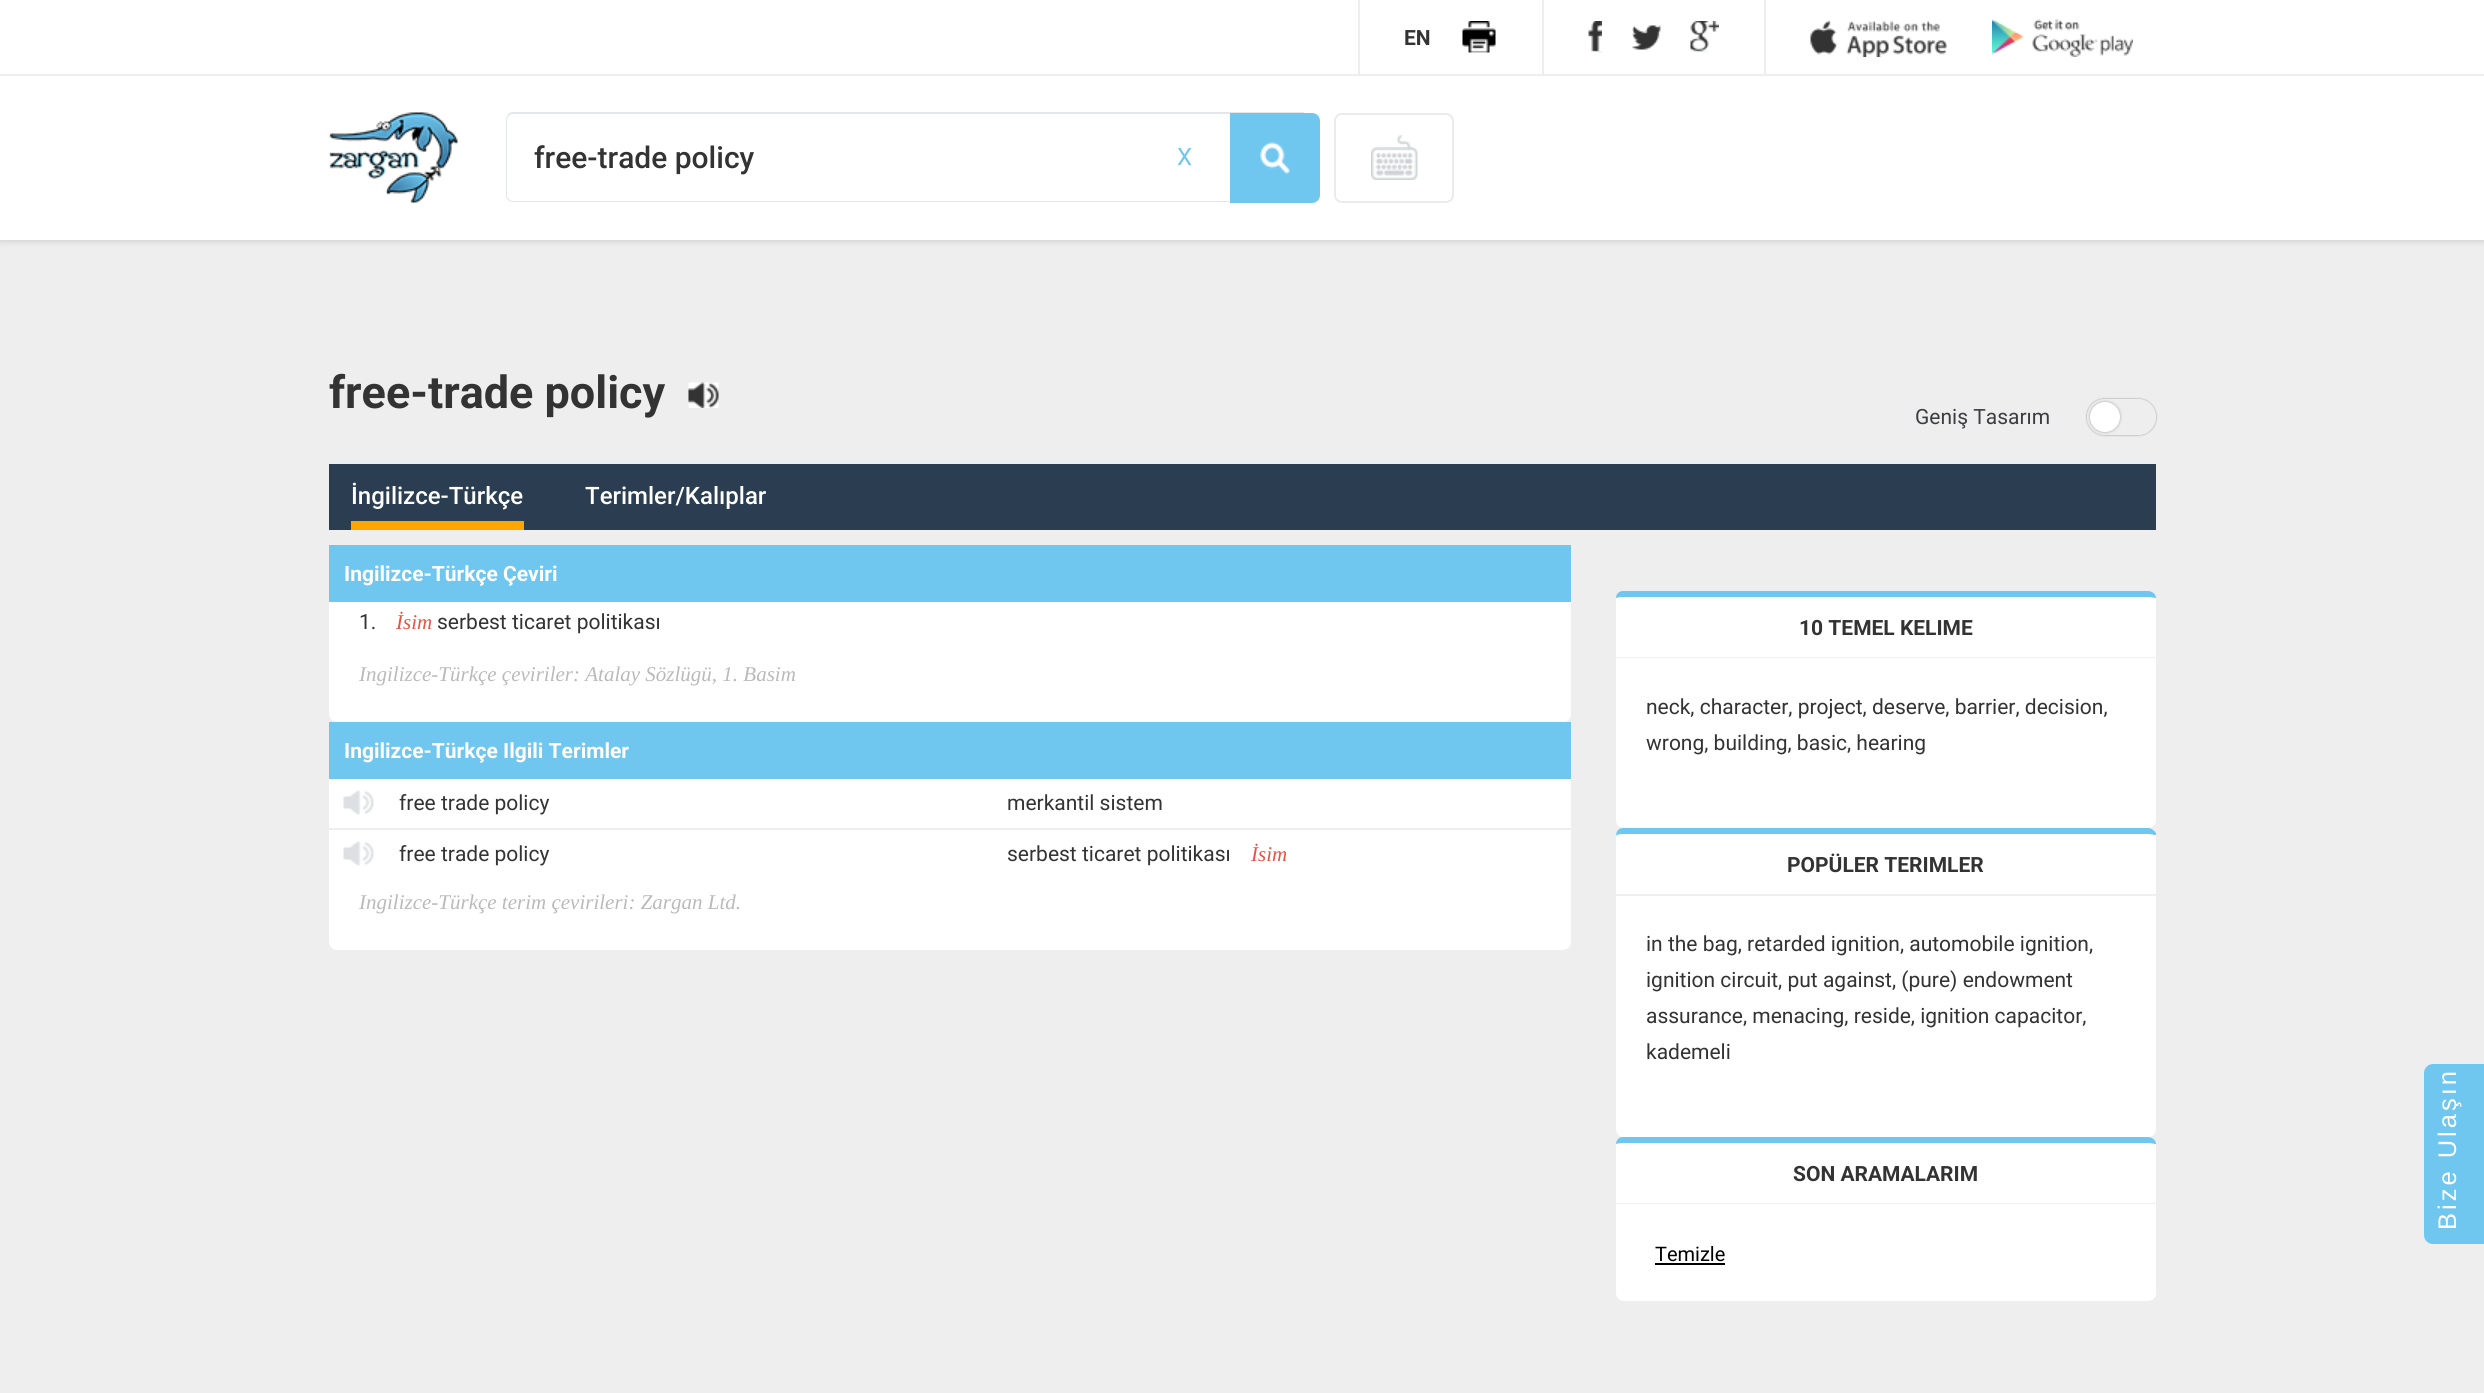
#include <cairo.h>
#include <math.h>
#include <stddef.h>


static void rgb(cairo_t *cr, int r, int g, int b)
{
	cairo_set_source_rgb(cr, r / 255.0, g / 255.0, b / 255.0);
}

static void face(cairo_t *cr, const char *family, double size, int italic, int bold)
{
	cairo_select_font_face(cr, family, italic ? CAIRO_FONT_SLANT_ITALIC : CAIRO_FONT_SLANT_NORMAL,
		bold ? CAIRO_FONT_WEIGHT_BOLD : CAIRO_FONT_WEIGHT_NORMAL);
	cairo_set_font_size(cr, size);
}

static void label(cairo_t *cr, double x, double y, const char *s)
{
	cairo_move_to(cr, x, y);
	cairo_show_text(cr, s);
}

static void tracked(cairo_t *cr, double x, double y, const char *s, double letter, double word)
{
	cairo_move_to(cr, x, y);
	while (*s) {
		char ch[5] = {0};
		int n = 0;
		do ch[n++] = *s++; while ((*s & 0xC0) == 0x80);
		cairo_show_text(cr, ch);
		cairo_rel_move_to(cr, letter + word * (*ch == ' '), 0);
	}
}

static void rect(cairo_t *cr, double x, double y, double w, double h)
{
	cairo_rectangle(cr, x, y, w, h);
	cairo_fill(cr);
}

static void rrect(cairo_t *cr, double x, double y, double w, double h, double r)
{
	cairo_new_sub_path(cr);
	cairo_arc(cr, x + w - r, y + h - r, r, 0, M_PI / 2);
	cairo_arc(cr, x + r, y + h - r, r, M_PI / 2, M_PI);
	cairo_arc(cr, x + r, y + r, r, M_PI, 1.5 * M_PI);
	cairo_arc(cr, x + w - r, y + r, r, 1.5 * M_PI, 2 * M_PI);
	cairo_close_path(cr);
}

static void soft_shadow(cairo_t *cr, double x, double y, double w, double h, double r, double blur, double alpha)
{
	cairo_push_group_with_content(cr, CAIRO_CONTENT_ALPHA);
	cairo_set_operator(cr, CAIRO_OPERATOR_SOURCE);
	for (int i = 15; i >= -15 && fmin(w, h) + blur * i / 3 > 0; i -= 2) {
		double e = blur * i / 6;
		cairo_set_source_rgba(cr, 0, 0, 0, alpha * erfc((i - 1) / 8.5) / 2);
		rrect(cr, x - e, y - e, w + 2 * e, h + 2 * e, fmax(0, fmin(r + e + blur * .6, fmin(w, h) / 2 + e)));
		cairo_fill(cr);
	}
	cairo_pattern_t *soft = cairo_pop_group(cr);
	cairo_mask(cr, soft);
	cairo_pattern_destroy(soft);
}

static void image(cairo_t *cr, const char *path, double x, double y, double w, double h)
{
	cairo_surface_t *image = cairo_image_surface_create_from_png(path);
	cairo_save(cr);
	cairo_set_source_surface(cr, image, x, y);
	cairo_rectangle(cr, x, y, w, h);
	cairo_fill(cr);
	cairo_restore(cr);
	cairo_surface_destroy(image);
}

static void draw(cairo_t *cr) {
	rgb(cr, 238, 238, 238);
	cairo_paint(cr);
	rgb(cr, 212, 212, 212);
	soft_shadow(cr, 0, 77, 2484, 165, 0, 3, 1);
	rgb(cr, 255, 255, 255);
	rect(cr, 0, 0, 2484, 74);
	rgb(cr, 238, 238, 238);
	rect(cr, 0, 74, 2484, 2);
	rect(cr, 1358, 0, 2, 75);
	face(cr, "Roboto", 21, 0, 1);
	rgb(cr, 51, 51, 51);
	label(cr, 1404, 45, "EN");
	image(cr, "image0.png", 1462, 21, 34, 32);
	rgb(cr, 238, 238, 238);
	rect(cr, 1542, 0, 2, 75);
	image(cr, "image1.png", 1588, 21, 14, 32);
	image(cr, "image2.png", 1632, 25, 29, 25);
	image(cr, "image3.png", 1690, 21, 29, 32);
	rect(cr, 1764, 0, 2, 75);
	image(cr, "image4.png", 1810, 20, 137, 37);
	image(cr, "image5.png", 1992, 19, 141, 38);
	rgb(cr, 255, 255, 255);
	rect(cr, 0, 76, 2484, 164);
	image(cr, "image6.png", 329, 112, 129, 91);
	rgb(cr, 228, 231, 233);
	cairo_set_fill_rule(cr, CAIRO_FILL_RULE_EVEN_ODD);
	cairo_new_path(cr);
	cairo_move_to(cr, 513, 112);
	cairo_line_to(cr, 1304, 112);
	cairo_line_to(cr, 1304, 202);
	cairo_line_to(cr, 513, 202);
	cairo_curve_to(cr, 509, 202, 506, 199, 506, 195);
	cairo_line_to(cr, 506, 120);
	cairo_curve_to(cr, 506, 116, 509, 112, 513, 112);
	cairo_close_path(cr);
	cairo_move_to(cr, 513, 114);
	cairo_line_to(cr, 1304, 114);
	cairo_line_to(cr, 1304, 201);
	cairo_line_to(cr, 513, 201);
	cairo_curve_to(cr, 510, 201, 507, 198, 507, 195);
	cairo_line_to(cr, 507, 120);
	cairo_curve_to(cr, 507, 117, 510, 114, 513, 114);
	cairo_close_path(cr);
	cairo_fill(cr);
	face(cr, "Roboto Medium", 30, 0, 0);
	rgb(cr, 51, 51, 51);
	label(cr, 534, 168, "free-trade policy");
	face(cr, "Roboto", 24, 0, 0);
	rgb(cr, 111, 199, 239);
	label(cr, 1177, 165, "X");
	cairo_new_path(cr);
	cairo_move_to(cr, 1230, 113);
	cairo_line_to(cr, 1312, 113);
	cairo_curve_to(cr, 1316.5, 113, 1320, 116.5, 1320, 121);
	cairo_line_to(cr, 1320, 195);
	cairo_curve_to(cr, 1320, 199.5, 1316.5, 203, 1312, 203);
	cairo_line_to(cr, 1230, 203);
	cairo_close_path(cr);
	cairo_fill(cr);
	image(cr, "image7.png", 1260, 142, 30, 32);
	image(cr, "image8.png", 1371, 135, 47, 45);
	rrect(cr, 1335, 114, 118, 88, 7);
	rgb(cr, 233, 235, 237);
	cairo_stroke(cr);
	face(cr, "Roboto", 45, 0, 1);
	rgb(cr, 51, 51, 51);
	label(cr, 329, 408, "free-trade policy");
	image(cr, "image9.png", 688, 382, 31, 26);
	face(cr, "Roboto", 21, 0, 0);
	rgb(cr, 60, 61, 65);
	label(cr, 1915, 424, "Geniş Tasarım");
	cairo_save(cr);
	cairo_new_path(cr);
	cairo_move_to(cr, 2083, 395);
	cairo_line_to(cr, 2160, 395);
	cairo_line_to(cr, 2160, 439);
	cairo_line_to(cr, 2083, 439);
	cairo_close_path(cr);
	cairo_move_to(cr, 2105, 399);
	cairo_line_to(cr, 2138, 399);
	cairo_curve_to(cr, 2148, 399, 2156, 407, 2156, 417);
	cairo_curve_to(cr, 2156, 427, 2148, 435, 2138, 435);
	cairo_line_to(cr, 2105, 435);
	cairo_curve_to(cr, 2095, 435, 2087, 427, 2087, 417);
	cairo_curve_to(cr, 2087, 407, 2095, 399, 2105, 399);
	cairo_close_path(cr);
	cairo_clip(cr);
	rgb(cr, 0, 0, 0);
	soft_shadow(cr, 2087, 399, 69, 36, 18, 1, 0.4);
	cairo_restore(cr);
	rgb(cr, 0, 0, 0);
	soft_shadow(cr, 2090, 402, 30, 30, 15, 1.5, 0.3);
	rgb(cr, 255, 255, 255);
	cairo_arc(cr, 2105, 417, 15, 0, 2 * M_PI);
	cairo_fill(cr);
	rgb(cr, 43, 62, 81);
	rect(cr, 329, 464, 1827, 66);
	rgb(cr, 255, 165, 0);
	rect(cr, 351, 521, 173, 9);
	face(cr, "Roboto Medium", 24, 0, 0);
	rgb(cr, 255, 255, 255);
	label(cr, 351, 504, "İngilizce-Türkçe");
	label(cr, 585, 504, "Terimler/Kalıplar");
	rgb(cr, 111, 199, 239);
	rect(cr, 329, 545, 1242, 57);
	face(cr, "Roboto", 21, 0, 1);
	rgb(cr, 255, 255, 255);
	label(cr, 344, 581, "Ingilizce-Türkçe Çeviri");
	cairo_new_path(cr);
	cairo_move_to(cr, 329, 602);
	cairo_line_to(cr, 1571, 602);
	cairo_line_to(cr, 1571, 714);
	cairo_curve_to(cr, 1571, 718.5, 1567.5, 722, 1563, 722);
	cairo_line_to(cr, 337, 722);
	cairo_curve_to(cr, 332.5, 722, 329, 718.5, 329, 714);
	cairo_close_path(cr);
	cairo_fill(cr);
	face(cr, "Roboto", 21, 0, 0);
	rgb(cr, 51, 51, 51);
	label(cr, 359, 629, "1.");
	face(cr, "Liberation Serif", 21, 1, 0);
	rgb(cr, 232, 83, 69);
	label(cr, 396, 629, "İsim");
	face(cr, "Roboto", 21, 0, 0);
	rgb(cr, 51, 51, 51);
	label(cr, 437, 629, "serbest ticaret politikası");
	face(cr, "Liberation Serif", 21, 1, 0);
	rgb(cr, 186, 186, 186);
	label(cr, 359, 681, "Ingilizce-Türkçe çeviriler: Atalay Sözlügü, 1. Basim");
	rgb(cr, 111, 199, 239);
	rect(cr, 329, 722, 1242, 57);
	face(cr, "Roboto", 21, 0, 1);
	rgb(cr, 255, 255, 255);
	label(cr, 344, 758, "Ingilizce-Türkçe Ilgili Terimler");
	cairo_new_path(cr);
	cairo_move_to(cr, 329, 779);
	cairo_line_to(cr, 1571, 779);
	cairo_line_to(cr, 1571, 942);
	cairo_curve_to(cr, 1571, 946.5, 1567.5, 950, 1563, 950);
	cairo_line_to(cr, 337, 950);
	cairo_curve_to(cr, 332.5, 950, 329, 946.5, 329, 942);
	cairo_close_path(cr);
	cairo_fill(cr);
	image(cr, "image10.png", 343, 790, 31, 25);
	face(cr, "Roboto", 21, 0, 0);
	rgb(cr, 51, 51, 51);
	label(cr, 399, 810, "free trade policy");
	label(cr, 1007, 810, "merkantil sistem");
	rgb(cr, 238, 238, 238);
	rect(cr, 329, 828, 1242, 2);
	image(cr, "image10.png", 343, 841, 31, 25);
	rgb(cr, 51, 51, 51);
	label(cr, 399, 861, "free trade policy");
	label(cr, 1007, 861, "serbest ticaret politikası");
	face(cr, "Liberation Serif", 21, 1, 0);
	rgb(cr, 232, 83, 69);
	label(cr, 1251, 861, "İsim");
	rgb(cr, 186, 186, 186);
	label(cr, 359, 909, "Ingilizce-Türkçe terim çevirileri: Zargan Ltd.");
	rgb(cr, 255, 255, 255);
	cairo_new_path(cr);
	cairo_move_to(cr, 1624, 591);
	cairo_line_to(cr, 2148, 591);
	cairo_curve_to(cr, 2152.5, 591, 2156, 594.5, 2156, 599);
	cairo_line_to(cr, 2156, 659);
	cairo_line_to(cr, 1616, 659);
	cairo_line_to(cr, 1616, 599);
	cairo_curve_to(cr, 1616, 594.5, 1619.5, 591, 1624, 591);
	cairo_close_path(cr);
	cairo_fill(cr);
	rgb(cr, 111, 199, 239);
	cairo_set_fill_rule(cr, CAIRO_FILL_RULE_WINDING);
	cairo_new_path(cr);
	cairo_move_to(cr, 1623, 591);
	cairo_line_to(cr, 2148, 591);
	cairo_curve_to(cr, 2152, 591, 2156, 594, 2156, 598);
	cairo_curve_to(cr, 2154, 598, 2151, 597, 2148, 597);
	cairo_line_to(cr, 1623, 597);
	cairo_curve_to(cr, 1619, 597, 1616, 598, 1616, 598);
	cairo_curve_to(cr, 1616, 594, 1619, 591, 1623, 591);
	cairo_close_path(cr);
	cairo_fill(cr);
	rgb(cr, 240, 240, 240);
	rect(cr, 1616, 657, 540, 1);
	face(cr, "Roboto", 21, 0, 1);
	rgb(cr, 51, 51, 51);
	label(cr, 1799, 635, "10 TEMEL KELIME");
	rgb(cr, 255, 255, 255);
	cairo_new_path(cr);
	cairo_move_to(cr, 1616, 659);
	cairo_line_to(cr, 2156, 659);
	cairo_line_to(cr, 2156, 820);
	cairo_curve_to(cr, 2156, 824.5, 2152.5, 828, 2148, 828);
	cairo_line_to(cr, 1624, 828);
	cairo_curve_to(cr, 1619.5, 828, 1616, 824.5, 1616, 820);
	cairo_close_path(cr);
	cairo_fill(cr);
	face(cr, "Roboto", 21, 0, 0);
	rgb(cr, 51, 51, 51);
	label(cr, 1646, 714, "neck, character, project, deserve, barrier, decision,");
	label(cr, 1646, 750, "wrong, building, basic, hearing");
	rgb(cr, 255, 255, 255);
	cairo_new_path(cr);
	cairo_move_to(cr, 1624, 828);
	cairo_line_to(cr, 2148, 828);
	cairo_curve_to(cr, 2152.5, 828, 2156, 831.5, 2156, 836);
	cairo_line_to(cr, 2156, 896);
	cairo_line_to(cr, 1616, 896);
	cairo_line_to(cr, 1616, 836);
	cairo_curve_to(cr, 1616, 831.5, 1619.5, 828, 1624, 828);
	cairo_close_path(cr);
	cairo_fill(cr);
	rgb(cr, 111, 199, 239);
	cairo_new_path(cr);
	cairo_move_to(cr, 1623, 828);
	cairo_line_to(cr, 2148, 828);
	cairo_curve_to(cr, 2151, 828, 2154, 830, 2156, 833);
	cairo_line_to(cr, 2156, 835);
	cairo_curve_to(cr, 2154, 835, 2151, 834, 2148, 834);
	cairo_line_to(cr, 1623, 834);
	cairo_curve_to(cr, 1619, 834, 1616, 835, 1616, 836);
	cairo_curve_to(cr, 1616, 831, 1619, 828, 1623, 828);
	cairo_close_path(cr);
	cairo_fill(cr);
	rgb(cr, 240, 240, 240);
	rect(cr, 1616, 894, 540, 2);
	face(cr, "Roboto", 21, 0, 1);
	rgb(cr, 51, 51, 51);
	label(cr, 1787, 872, "POPÜLER TERIMLER");
	rgb(cr, 255, 255, 255);
	cairo_new_path(cr);
	cairo_move_to(cr, 1616, 896);
	cairo_line_to(cr, 2156, 896);
	cairo_line_to(cr, 2156, 1129);
	cairo_curve_to(cr, 2156, 1133.5, 2152.5, 1137, 2148, 1137);
	cairo_line_to(cr, 1624, 1137);
	cairo_curve_to(cr, 1619.5, 1137, 1616, 1133.5, 1616, 1129);
	cairo_close_path(cr);
	cairo_fill(cr);
	face(cr, "Roboto", 21, 0, 0);
	rgb(cr, 51, 51, 51);
	label(cr, 1646, 951, "in the bag, retarded ignition, automobile ignition,");
	label(cr, 1646, 987, "ignition circuit, put against, (pure) endowment");
	label(cr, 1646, 1023, "assurance, menacing, reside, ignition capacitor,");
	label(cr, 1646, 1059, "kademeli");
	rgb(cr, 255, 255, 255);
	cairo_new_path(cr);
	cairo_move_to(cr, 1624, 1137);
	cairo_line_to(cr, 2148, 1137);
	cairo_curve_to(cr, 2152.5, 1137, 2156, 1140.5, 2156, 1145);
	cairo_line_to(cr, 2156, 1205);
	cairo_line_to(cr, 1616, 1205);
	cairo_line_to(cr, 1616, 1145);
	cairo_curve_to(cr, 1616, 1140.5, 1619.5, 1137, 1624, 1137);
	cairo_close_path(cr);
	cairo_fill(cr);
	rgb(cr, 111, 199, 239);
	cairo_new_path(cr);
	cairo_move_to(cr, 1623, 1137);
	cairo_line_to(cr, 2148, 1137);
	cairo_curve_to(cr, 2152, 1137, 2156, 1140, 2156, 1144);
	cairo_curve_to(cr, 2154, 1144, 2151, 1143, 2148, 1143);
	cairo_line_to(cr, 1623, 1143);
	cairo_curve_to(cr, 1619, 1143, 1616, 1144, 1616, 1144);
	cairo_curve_to(cr, 1616, 1140, 1619, 1137, 1623, 1137);
	cairo_close_path(cr);
	cairo_fill(cr);
	rgb(cr, 240, 240, 240);
	rect(cr, 1616, 1203, 540, 1);
	face(cr, "Roboto", 21, 0, 1);
	rgb(cr, 51, 51, 51);
	label(cr, 1793, 1181, "SON ARAMALARIM");
	rgb(cr, 255, 255, 255);
	cairo_new_path(cr);
	cairo_move_to(cr, 1616, 1205);
	cairo_line_to(cr, 2156, 1205);
	cairo_line_to(cr, 2156, 1293);
	cairo_curve_to(cr, 2156, 1297.5, 2152.5, 1301, 2148, 1301);
	cairo_line_to(cr, 1624, 1301);
	cairo_curve_to(cr, 1619.5, 1301, 1616, 1297.5, 1616, 1293);
	cairo_close_path(cr);
	cairo_fill(cr);
	face(cr, "Roboto", 20, 0, 0);
	rgb(cr, 0, 0, 0);
	label(cr, 1655, 1261, "Temizle");
	rect(cr, 1655, 1263, 70, 2);
	rgb(cr, 111, 199, 239);
	cairo_new_path(cr);
	cairo_move_to(cr, 2433, 1064);
	cairo_line_to(cr, 2484, 1064);
	cairo_line_to(cr, 2484, 1244);
	cairo_line_to(cr, 2433, 1244);
	cairo_curve_to(cr, 2428, 1244, 2424, 1240, 2424, 1235);
	cairo_line_to(cr, 2424, 1073);
	cairo_curve_to(cr, 2424, 1068, 2428, 1064, 2433, 1064);
	cairo_close_path(cr);
	cairo_fill(cr);
	face(cr, "Liberation Sans", 25.5, 0, 0);
	rgb(cr, 255, 255, 255);
	cairo_save(cr);
	cairo_translate(cr, 2456, 1230);
	cairo_rotate(cr, -90 * M_PI / 180);
	tracked(cr, 0, 0, "Bize Ulaşın", 3, 0);
	cairo_restore(cr);
}

int main(void) {
	cairo_surface_t *surface = cairo_image_surface_create(CAIRO_FORMAT_RGB24, 2484, 1393);
	cairo_t *cr = cairo_create(surface);
	cairo_font_options_t *options = cairo_font_options_create();
	cairo_font_options_set_hint_metrics(options, CAIRO_HINT_METRICS_OFF);
	cairo_font_options_set_hint_style(options, CAIRO_HINT_STYLE_NONE);
	cairo_set_font_options(cr, options);
	cairo_set_miter_limit(cr, 4);
	draw(cr);
	cairo_surface_write_to_png(surface, "render.png");
	cairo_font_options_destroy(options);
	cairo_destroy(cr);
	cairo_surface_destroy(surface);
	return 0;
}
